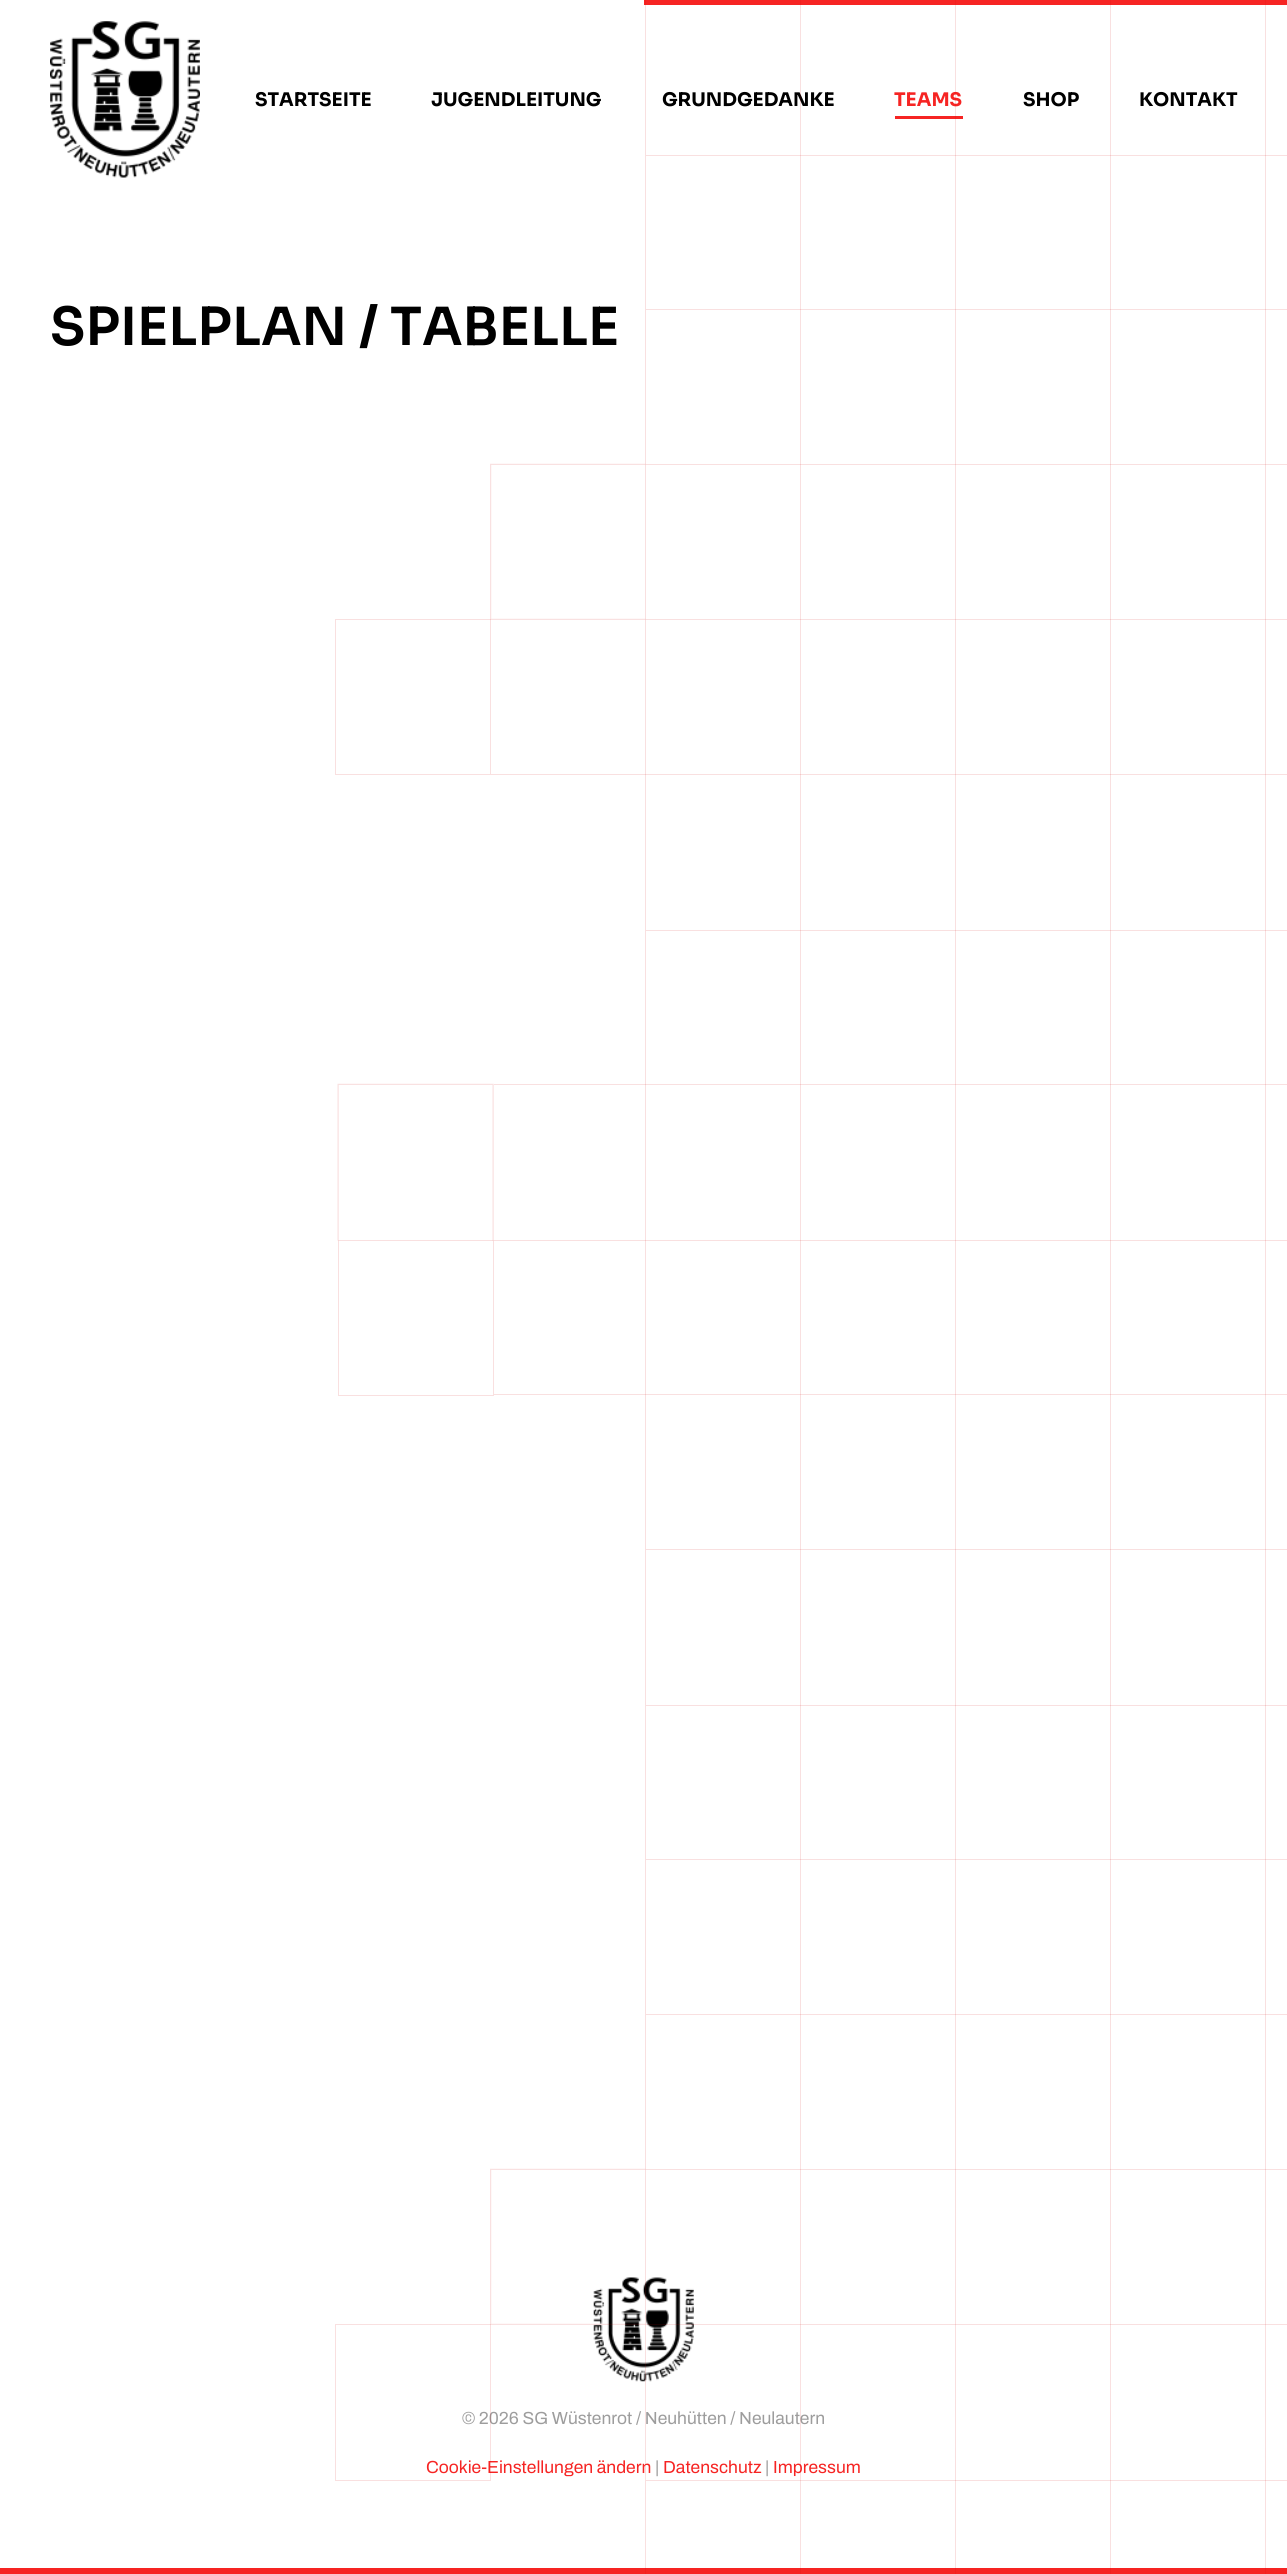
#include <cairo.h>
#include <math.h>
#include <stddef.h>


static void rgb(cairo_t *cr, int r, int g, int b)
{
	cairo_set_source_rgb(cr, r / 255.0, g / 255.0, b / 255.0);
}

static void face(cairo_t *cr, const char *family, double size, int italic, int bold)
{
	cairo_select_font_face(cr, family, italic ? CAIRO_FONT_SLANT_ITALIC : CAIRO_FONT_SLANT_NORMAL,
		bold ? CAIRO_FONT_WEIGHT_BOLD : CAIRO_FONT_WEIGHT_NORMAL);
	cairo_set_font_size(cr, size);
}

static void label(cairo_t *cr, double x, double y, const char *s)
{
	cairo_move_to(cr, x, y);
	cairo_show_text(cr, s);
}

static void rect(cairo_t *cr, double x, double y, double w, double h)
{
	cairo_rectangle(cr, x, y, w, h);
	cairo_fill(cr);
}

static void image(cairo_t *cr, const char *path, double x, double y, double w, double h)
{
	cairo_surface_t *image = cairo_image_surface_create_from_png(path);
	cairo_save(cr);
	cairo_set_source_surface(cr, image, x, y);
	cairo_rectangle(cr, x, y, w, h);
	cairo_fill(cr);
	cairo_restore(cr);
	cairo_surface_destroy(image);
}

static void draw(cairo_t *cr) {
	rgb(cr, 255, 255, 255);
	cairo_paint(cr);
	rgb(cr, 246, 36, 35);
	rect(cr, 0, 2568, 1287, 6);
	rect(cr, 644, 0, 643, 5);
	face(cr, "Sora", 18.75, 0, 1);
	rgb(cr, 0, 0, 0);
	label(cr, 255, 106, "STARTSEITE");
	label(cr, 431, 106, "JUGENDLEITUNG");
	label(cr, 662, 106, "GRUNDGEDANKE");
	rgb(cr, 246, 36, 35);
	label(cr, 894, 106, "TEAMS");
	rect(cr, 895, 116, 68, 3);
	rgb(cr, 0, 0, 0);
	label(cr, 1023, 106, "SHOP");
	label(cr, 1139, 106, "KONTAKT");
	face(cr, "Sora SemiBold", 52.5, 0, 0);
	label(cr, 50, 345, "SPIELPLAN / TABELLE");
	image(cr, "image2.png", 593, 2277, 101, 105);
	face(cr, "Archivo SemiBold", 17.5, 0, 0);
	rgb(cr, 157, 157, 157);
	label(cr, 462, 2424, "© 2026 SG Wüstenrot / Neuhütten / Neulautern");
	rgb(cr, 246, 36, 35);
	label(cr, 426, 2473, "Cookie-Einstellungen ändern");
	rgb(cr, 157, 157, 157);
	label(cr, 655, 2473, "|");
	rgb(cr, 246, 36, 35);
	label(cr, 663, 2473, "Datenschutz");
	rgb(cr, 157, 157, 157);
	label(cr, 765, 2473, "|");
	rgb(cr, 246, 36, 35);
	label(cr, 773, 2473, "Impressum");
	image(cr, "image0.png", 335, 0, 952, 2574);
	image(cr, "image1.png", 50, 21, 150, 157);
}

int main(void) {
	cairo_surface_t *surface = cairo_image_surface_create(CAIRO_FORMAT_RGB24, 1287, 2574);
	cairo_t *cr = cairo_create(surface);
	cairo_font_options_t *options = cairo_font_options_create();
	cairo_font_options_set_hint_metrics(options, CAIRO_HINT_METRICS_OFF);
	cairo_font_options_set_hint_style(options, CAIRO_HINT_STYLE_NONE);
	cairo_set_font_options(cr, options);
	cairo_set_miter_limit(cr, 4);
	draw(cr);
	cairo_surface_write_to_png(surface, "render.png");
	cairo_font_options_destroy(options);
	cairo_destroy(cr);
	cairo_surface_destroy(surface);
	return 0;
}
